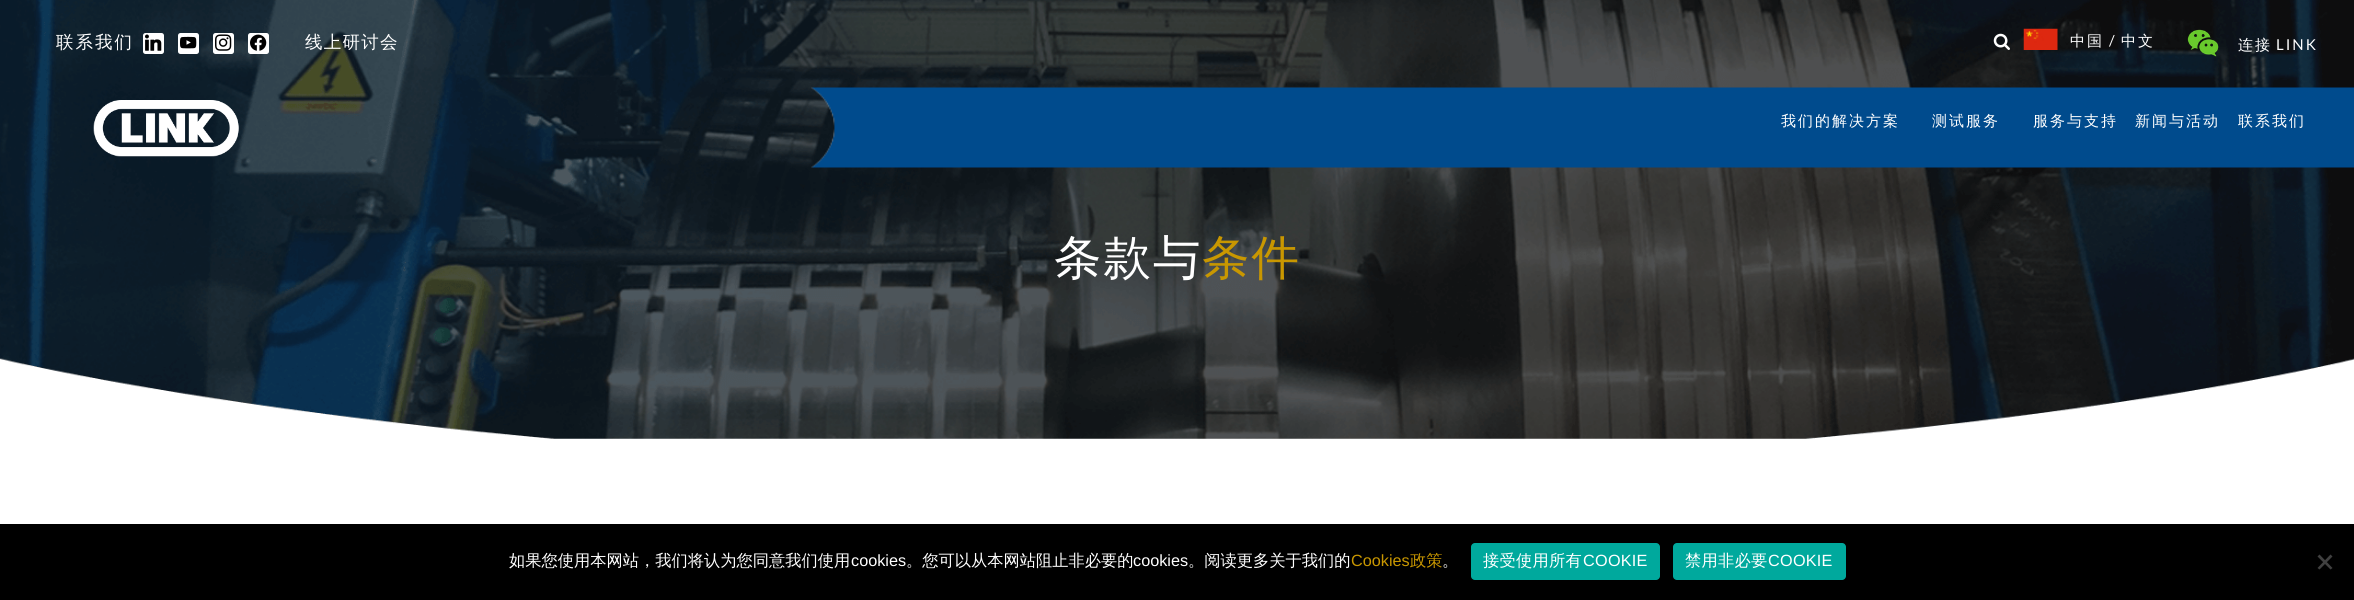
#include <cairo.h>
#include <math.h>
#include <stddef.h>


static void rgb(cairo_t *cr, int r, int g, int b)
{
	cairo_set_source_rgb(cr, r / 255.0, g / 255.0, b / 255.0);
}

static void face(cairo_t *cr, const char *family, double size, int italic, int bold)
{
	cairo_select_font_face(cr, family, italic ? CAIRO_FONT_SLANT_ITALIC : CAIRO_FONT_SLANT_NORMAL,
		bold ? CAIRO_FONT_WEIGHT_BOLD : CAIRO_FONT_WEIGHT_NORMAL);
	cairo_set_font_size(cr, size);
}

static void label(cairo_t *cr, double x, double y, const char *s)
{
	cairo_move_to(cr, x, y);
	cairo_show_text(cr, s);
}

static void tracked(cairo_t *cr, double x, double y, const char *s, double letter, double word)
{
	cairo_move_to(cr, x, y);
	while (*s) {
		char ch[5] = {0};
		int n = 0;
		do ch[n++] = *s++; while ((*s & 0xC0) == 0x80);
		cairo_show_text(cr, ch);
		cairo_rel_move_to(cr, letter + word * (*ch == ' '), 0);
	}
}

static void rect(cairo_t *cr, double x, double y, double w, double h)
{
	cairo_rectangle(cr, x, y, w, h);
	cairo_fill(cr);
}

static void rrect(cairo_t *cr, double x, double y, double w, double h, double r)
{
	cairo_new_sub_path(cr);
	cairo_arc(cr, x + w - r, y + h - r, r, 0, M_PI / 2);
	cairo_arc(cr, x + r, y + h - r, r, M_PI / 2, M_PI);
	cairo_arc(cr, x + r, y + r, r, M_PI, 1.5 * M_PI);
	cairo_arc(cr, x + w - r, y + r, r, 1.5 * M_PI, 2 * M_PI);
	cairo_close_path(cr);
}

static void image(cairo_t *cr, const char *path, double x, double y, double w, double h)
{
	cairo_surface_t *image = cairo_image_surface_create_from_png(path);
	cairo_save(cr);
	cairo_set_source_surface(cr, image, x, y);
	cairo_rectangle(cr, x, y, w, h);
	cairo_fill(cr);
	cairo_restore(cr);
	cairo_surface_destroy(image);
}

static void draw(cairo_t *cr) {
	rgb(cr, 255, 255, 255);
	cairo_paint(cr);
	image(cr, "image9.png", 0, 0, 2354, 439);
	face(cr, "WenQuanYi Zen Hei Medium", 17.5, 0, 0);
	rgb(cr, 255, 255, 255);
	tracked(cr, 56, 48, "联系我们", 2, 0);
	rrect(cr, 143, 33, 21, 21, 2.5);
	cairo_fill(cr);
	image(cr, "image0.png", 145, 34, 17, 17);
	rrect(cr, 178, 33, 21, 21, 2.5);
	cairo_fill(cr);
	image(cr, "image1.png", 180, 36, 17, 13);
	rrect(cr, 213, 33, 21, 21, 2.5);
	cairo_fill(cr);
	image(cr, "image2.png", 215, 34, 17, 17);
	rrect(cr, 248, 33, 21, 21, 2.5);
	cairo_fill(cr);
	image(cr, "image3.png", 250, 34, 17, 17);
	tracked(cr, 305, 48, "线上研讨会", 1.25, 0);
	image(cr, "image4.png", 1993, 33, 17, 17);
	image(cr, "image5.png", 2023, 28, 35, 22);
	face(cr, "WenQuanYi Zen Hei Medium", 15, 0, 0);
	tracked(cr, 2070, 46, "中国", 2, 0);
	face(cr, "Lato", 15, 0, 0);
	tracked(cr, 2109, 46, "/", 2, 0);
	face(cr, "WenQuanYi Zen Hei Medium", 15, 0, 0);
	tracked(cr, 2121, 46, "中文", 2, 0);
	image(cr, "image6.png", 2187, 29, 32, 28);
	tracked(cr, 2238, 50, "连接", 2, 0);
	face(cr, "Lato", 15, 0, 0);
	tracked(cr, 2276, 50, "LINK", 2, 0);
	image(cr, "image7.png", 93, 100, 146, 57);
	image(cr, "image8.png", 811, 87, 1543, 81);
	face(cr, "WenQuanYi Zen Hei Medium", 15, 0, 0);
	tracked(cr, 1781, 126, "我们的解决方案", 2, 0);
	tracked(cr, 1932, 126, "测试服务", 2, 0);
	tracked(cr, 2033, 126, "服务与支持", 2, 0);
	tracked(cr, 2135, 126, "新闻与活动", 2, 0);
	tracked(cr, 2238, 126, "联系我们", 2, 0);
	face(cr, "WenQuanYi Zen Hei Medium", 47.5, 0, 0);
	tracked(cr, 1054, 274, "条款与", 2, 0);
	rgb(cr, 201, 151, 0);
	tracked(cr, 1202, 274, "条件", 2, 0);
	rgb(cr, 0, 0, 0);
	rect(cr, 0, 524, 2354, 76);
	face(cr, "WenQuanYi Zen Hei Medium", 16.25, 0, 0);
	rgb(cr, 255, 255, 255);
	label(cr, 509, 566, "如果您使用本网站，我们将认为您同意我们使用");
	face(cr, "Liberation Sans", 16.25, 0, 0);
	label(cr, 851, 566, "cookies");
	face(cr, "WenQuanYi Zen Hei Medium", 16.25, 0, 0);
	label(cr, 906, 566, "。您可以从本网站阻止非必要的");
	face(cr, "Liberation Sans", 16.25, 0, 0);
	label(cr, 1133, 566, "cookies");
	face(cr, "WenQuanYi Zen Hei Medium", 16.25, 0, 0);
	label(cr, 1188, 566, "。阅读更多关于我们的");
	face(cr, "Liberation Sans", 16.25, 0, 0);
	rgb(cr, 201, 151, 0);
	label(cr, 1351, 566, "Cookies");
	face(cr, "WenQuanYi Zen Hei Medium", 16.25, 0, 0);
	label(cr, 1410, 566, "政策");
	rgb(cr, 255, 255, 255);
	label(cr, 1442, 566, "。");
	rgb(cr, 0, 169, 157);
	rrect(cr, 1471, 543, 189, 37, 4);
	cairo_fill(cr);
	rgb(cr, 255, 255, 255);
	tracked(cr, 1483, 566, "接受使用所有", 0.25, 0);
	face(cr, "Liberation Sans", 16.25, 0, 0);
	tracked(cr, 1583, 566, "COOKIE", 0.25, 0);
	rgb(cr, 0, 169, 157);
	rrect(cr, 1673, 543, 173, 37, 4);
	cairo_fill(cr);
	face(cr, "WenQuanYi Zen Hei Medium", 16.25, 0, 0);
	rgb(cr, 255, 255, 255);
	tracked(cr, 1685, 566, "禁用非必要", 0.25, 0);
	face(cr, "Liberation Sans", 16.25, 0, 0);
	tracked(cr, 1768, 566, "COOKIE", 0.25, 0);
	rgb(cr, 64, 64, 64);
	cairo_new_path(cr);
	cairo_move_to(cr, 2330.5, 554.5);
	cairo_line_to(cr, 2332.5, 556.5);
	cairo_line_to(cr, 2319.5, 569.5);
	cairo_line_to(cr, 2317.5, 568);
	cairo_close_path(cr);
	cairo_fill(cr);
	cairo_new_path(cr);
	cairo_move_to(cr, 2317.5, 556.5);
	cairo_line_to(cr, 2319.5, 554.5);
	cairo_line_to(cr, 2332.5, 568);
	cairo_line_to(cr, 2330.5, 569.5);
	cairo_close_path(cr);
	cairo_fill(cr);
}

int main(void) {
	cairo_surface_t *surface = cairo_image_surface_create(CAIRO_FORMAT_RGB24, 2354, 600);
	cairo_t *cr = cairo_create(surface);
	cairo_font_options_t *options = cairo_font_options_create();
	cairo_font_options_set_hint_metrics(options, CAIRO_HINT_METRICS_OFF);
	cairo_font_options_set_hint_style(options, CAIRO_HINT_STYLE_NONE);
	cairo_set_font_options(cr, options);
	cairo_set_miter_limit(cr, 4);
	draw(cr);
	cairo_surface_write_to_png(surface, "render.png");
	cairo_font_options_destroy(options);
	cairo_destroy(cr);
	cairo_surface_destroy(surface);
	return 0;
}
